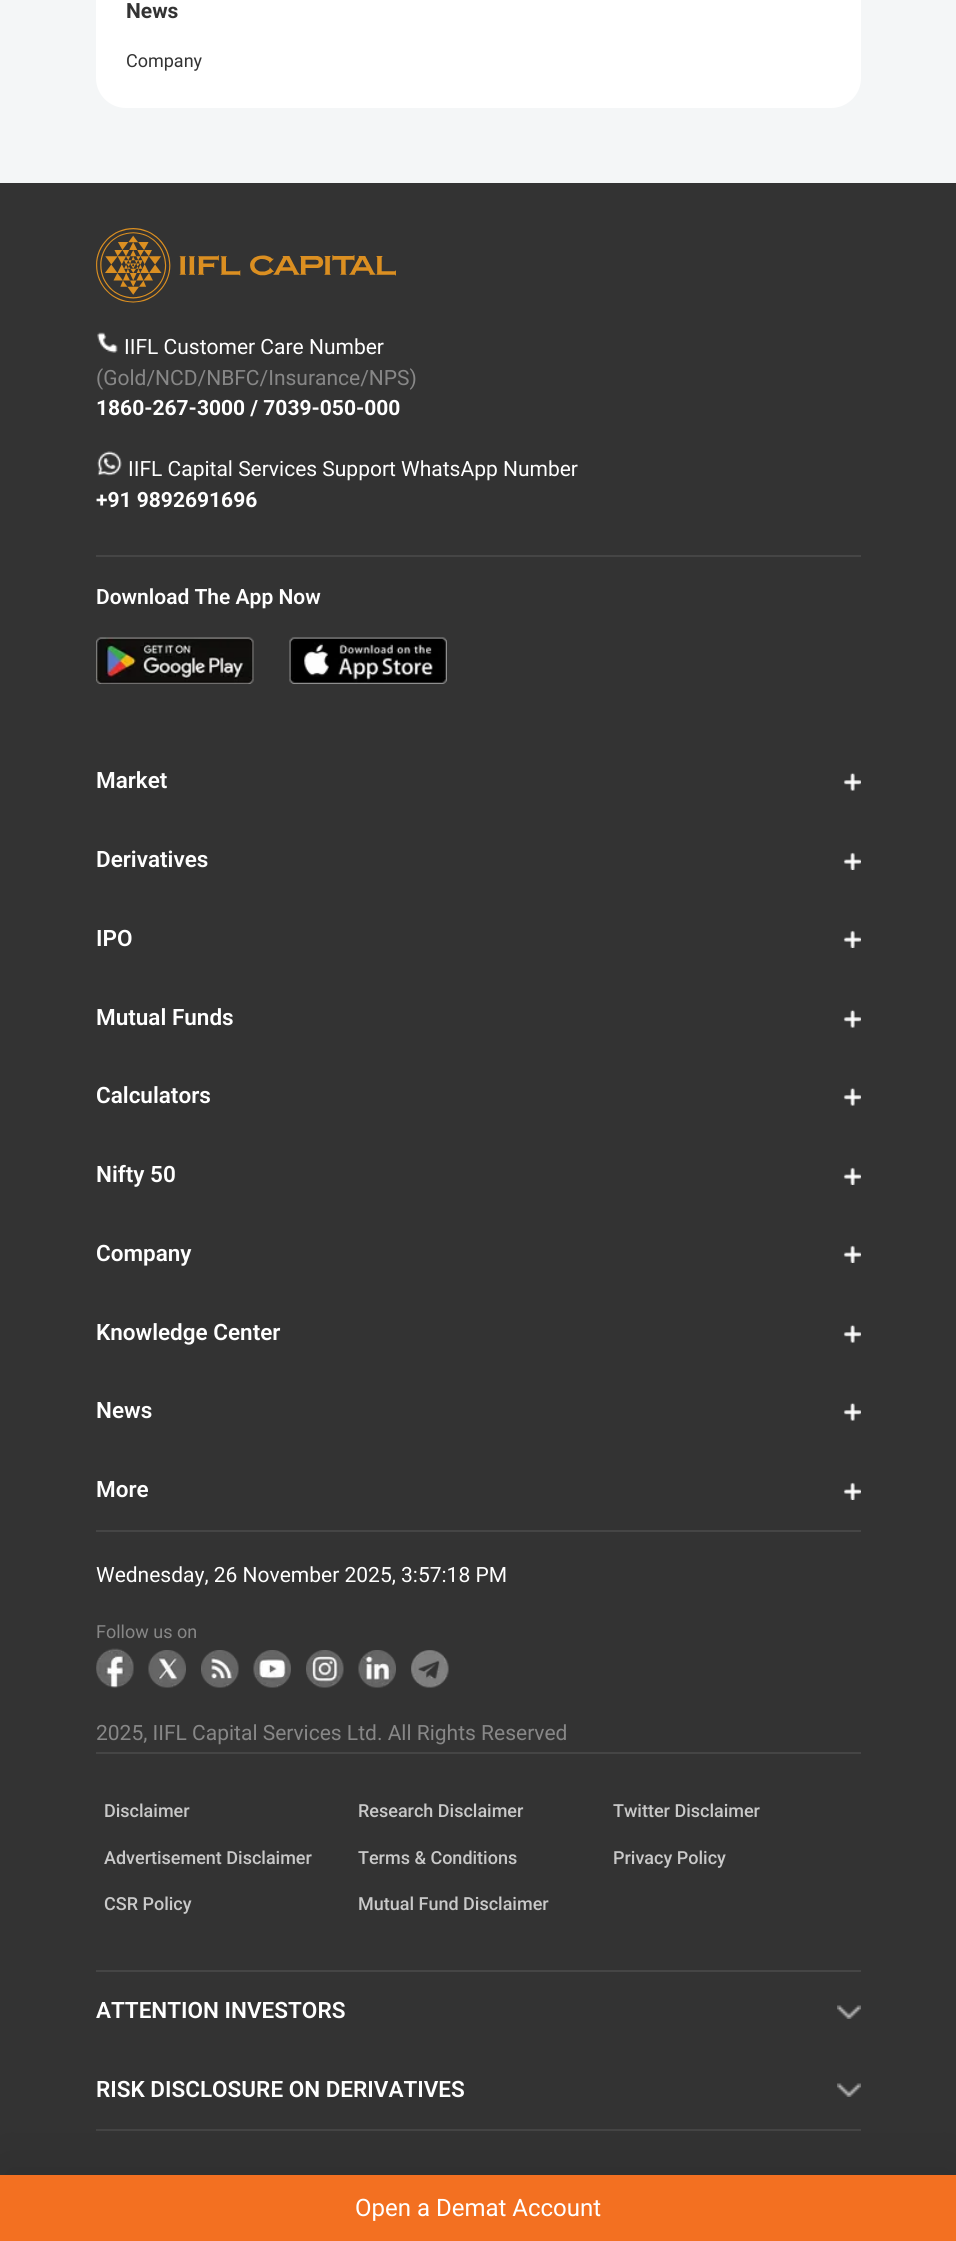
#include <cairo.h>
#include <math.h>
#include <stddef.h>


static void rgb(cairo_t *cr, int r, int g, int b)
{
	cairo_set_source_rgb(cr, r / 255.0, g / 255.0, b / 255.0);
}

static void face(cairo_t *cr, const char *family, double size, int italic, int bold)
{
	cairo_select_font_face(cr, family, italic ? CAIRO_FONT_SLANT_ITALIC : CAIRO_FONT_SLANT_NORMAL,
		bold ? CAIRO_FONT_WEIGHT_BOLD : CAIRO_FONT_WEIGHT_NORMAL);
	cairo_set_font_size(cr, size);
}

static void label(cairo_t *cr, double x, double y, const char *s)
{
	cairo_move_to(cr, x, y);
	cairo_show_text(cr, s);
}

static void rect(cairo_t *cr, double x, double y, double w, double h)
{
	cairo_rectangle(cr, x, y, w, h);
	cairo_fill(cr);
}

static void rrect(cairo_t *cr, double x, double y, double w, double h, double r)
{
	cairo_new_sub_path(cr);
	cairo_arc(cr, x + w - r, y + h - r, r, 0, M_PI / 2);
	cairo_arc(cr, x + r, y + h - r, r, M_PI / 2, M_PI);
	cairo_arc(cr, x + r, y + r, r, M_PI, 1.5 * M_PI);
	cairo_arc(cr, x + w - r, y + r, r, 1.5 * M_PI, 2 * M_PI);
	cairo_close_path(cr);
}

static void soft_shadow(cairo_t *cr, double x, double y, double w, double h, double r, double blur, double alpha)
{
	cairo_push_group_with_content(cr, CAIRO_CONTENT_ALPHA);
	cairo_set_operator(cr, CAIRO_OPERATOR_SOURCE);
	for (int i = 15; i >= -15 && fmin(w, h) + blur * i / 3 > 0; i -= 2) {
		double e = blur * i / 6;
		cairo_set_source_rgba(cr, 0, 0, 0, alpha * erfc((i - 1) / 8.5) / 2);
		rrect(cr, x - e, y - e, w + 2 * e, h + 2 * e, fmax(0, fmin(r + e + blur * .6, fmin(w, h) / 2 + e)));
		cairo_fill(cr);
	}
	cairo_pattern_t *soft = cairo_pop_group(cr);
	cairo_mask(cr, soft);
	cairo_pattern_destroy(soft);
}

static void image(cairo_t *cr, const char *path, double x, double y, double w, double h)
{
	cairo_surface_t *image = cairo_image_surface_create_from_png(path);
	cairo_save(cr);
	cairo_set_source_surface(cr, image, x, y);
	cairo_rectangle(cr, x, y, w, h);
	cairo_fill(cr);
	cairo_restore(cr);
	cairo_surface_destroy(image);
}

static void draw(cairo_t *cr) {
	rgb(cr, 244, 246, 247);
	cairo_paint(cr);
	rgb(cr, 255, 255, 255);
	rrect(cr, 96, -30, 765, 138, 30);
	cairo_fill(cr);
	face(cr, "Roboto", 21, 0, 1);
	rgb(cr, 51, 51, 51);
	label(cr, 126, 18, "News");
	face(cr, "Roboto", 18, 0, 0);
	label(cr, 126, 67, "Company");
	rect(cr, 0, 183, 956, 1992);
	rgb(cr, 69, 69, 69);
	rect(cr, 96, 555, 765, 2);
	image(cr, "image0.png", 96, 228, 300, 75);
	image(cr, "image1.png", 97, 332, 21, 21);
	face(cr, "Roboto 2", 21, 0, 0);
	rgb(cr, 255, 255, 255);
	label(cr, 124, 354, "IIFL Customer Care Number");
	rgb(cr, 135, 135, 135);
	label(cr, 96, 385, "(Gold/NCD/NBFC/Insurance/NPS)");
	face(cr, "Roboto 2", 21, 0, 1);
	rgb(cr, 255, 255, 255);
	label(cr, 96, 415, "1860-267-3000 / 7039-050-000");
	image(cr, "image2.png", 97, 451, 25, 25);
	face(cr, "Roboto 2", 21, 0, 0);
	label(cr, 128, 476, "IIFL Capital Services Support WhatsApp Number");
	face(cr, "Roboto 2", 21, 0, 1);
	label(cr, 96, 507, "+91 9892691696");
	face(cr, "Roboto SemiBold", 21, 0, 0);
	label(cr, 96, 604, "Download The App Now");
	image(cr, "image3.png", 96, 637, 158, 47);
	image(cr, "image4.png", 289, 637, 158, 47);
	face(cr, "Roboto SemiBold", 22.5, 0, 0);
	label(cr, 96, 788, "Market");
	image(cr, "image5.png", 843, 772, 18, 19);
	label(cr, 96, 867, "Derivatives");
	image(cr, "image6.png", 843, 852, 18, 18);
	label(cr, 96, 946, "IPO");
	image(cr, "image6.png", 843, 930, 18, 18);
	label(cr, 96, 1025, "Mutual Funds");
	image(cr, "image5.png", 843, 1009, 18, 19);
	label(cr, 96, 1103, "Calculators");
	image(cr, "image5.png", 843, 1087, 18, 19);
	label(cr, 96, 1182, "Nifty 50");
	image(cr, "image6.png", 843, 1167, 18, 18);
	label(cr, 96, 1261, "Company");
	image(cr, "image6.png", 843, 1245, 18, 18);
	label(cr, 96, 1340, "Knowledge Center");
	image(cr, "image5.png", 843, 1324, 18, 19);
	label(cr, 96, 1418, "News");
	image(cr, "image5.png", 843, 1402, 18, 19);
	label(cr, 96, 1497, "More");
	image(cr, "image6.png", 843, 1482, 18, 18);
	rgb(cr, 69, 69, 69);
	rect(cr, 96, 1530, 765, 2);
	face(cr, "Roboto 2", 21, 0, 0);
	rgb(cr, 255, 255, 255);
	label(cr, 96, 1582, "Wednesday, 26 November 2025, 3:57:18 PM");
	face(cr, "Roboto 2", 18, 0, 0);
	rgb(cr, 135, 135, 135);
	label(cr, 96, 1638, "Follow us on");
	image(cr, "image7.png", 96, 1648, 38, 40);
	image(cr, "image8.png", 148, 1650, 38, 38);
	image(cr, "image9.png", 201, 1650, 38, 38);
	image(cr, "image10.png", 253, 1650, 38, 38);
	image(cr, "image11.png", 306, 1650, 38, 38);
	image(cr, "image12.png", 358, 1650, 38, 38);
	image(cr, "image13.png", 411, 1650, 38, 38);
	face(cr, "Roboto 2", 21, 0, 0);
	label(cr, 96, 1740, "2025, IIFL Capital Services Ltd. All Rights Reserved");
	rgb(cr, 69, 69, 69);
	rect(cr, 96, 1752, 765, 2);
	face(cr, "Roboto Medium", 18, 0, 0);
	rgb(cr, 201, 201, 201);
	label(cr, 104, 1817, "Disclaimer");
	label(cr, 358, 1817, "Research Disclaimer");
	label(cr, 613, 1817, "Twitter Disclaimer");
	label(cr, 104, 1864, "Advertisement Disclaimer");
	label(cr, 358, 1864, "Terms & Conditions");
	label(cr, 613, 1864, "Privacy Policy");
	label(cr, 104, 1910, "CSR Policy");
	label(cr, 358, 1910, "Mutual Fund Disclaimer");
	rgb(cr, 69, 69, 69);
	rect(cr, 96, 1970, 765, 2);
	face(cr, "Roboto SemiBold", 22.5, 0, 0);
	rgb(cr, 255, 255, 255);
	label(cr, 96, 2018, "ATTENTION INVESTORS");
	image(cr, "image14.png", 837, 2005, 24, 14);
	label(cr, 96, 2097, "RISK DISCLOSURE ON DERIVATIVES");
	image(cr, "image14.png", 837, 2083, 24, 14);
	rgb(cr, 69, 69, 69);
	rect(cr, 96, 2129, 765, 2);
	rgb(cr, 0, 0, 0);
	soft_shadow(cr, 0, 2163, 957, 66, 0, 26, 0.1);
	rgb(cr, 243, 112, 33);
	rect(cr, 0, 2175, 956, 66);
	face(cr, "Roboto", 24, 0, 0);
	rgb(cr, 255, 255, 255);
	label(cr, 355, 2216, "Open a Demat Account");
}

int main(void) {
	cairo_surface_t *surface = cairo_image_surface_create(CAIRO_FORMAT_RGB24, 956, 2241);
	cairo_t *cr = cairo_create(surface);
	cairo_font_options_t *options = cairo_font_options_create();
	cairo_font_options_set_hint_metrics(options, CAIRO_HINT_METRICS_OFF);
	cairo_font_options_set_hint_style(options, CAIRO_HINT_STYLE_NONE);
	cairo_set_font_options(cr, options);
	cairo_set_miter_limit(cr, 4);
	draw(cr);
	cairo_surface_write_to_png(surface, "render.png");
	cairo_font_options_destroy(options);
	cairo_destroy(cr);
	cairo_surface_destroy(surface);
	return 0;
}
